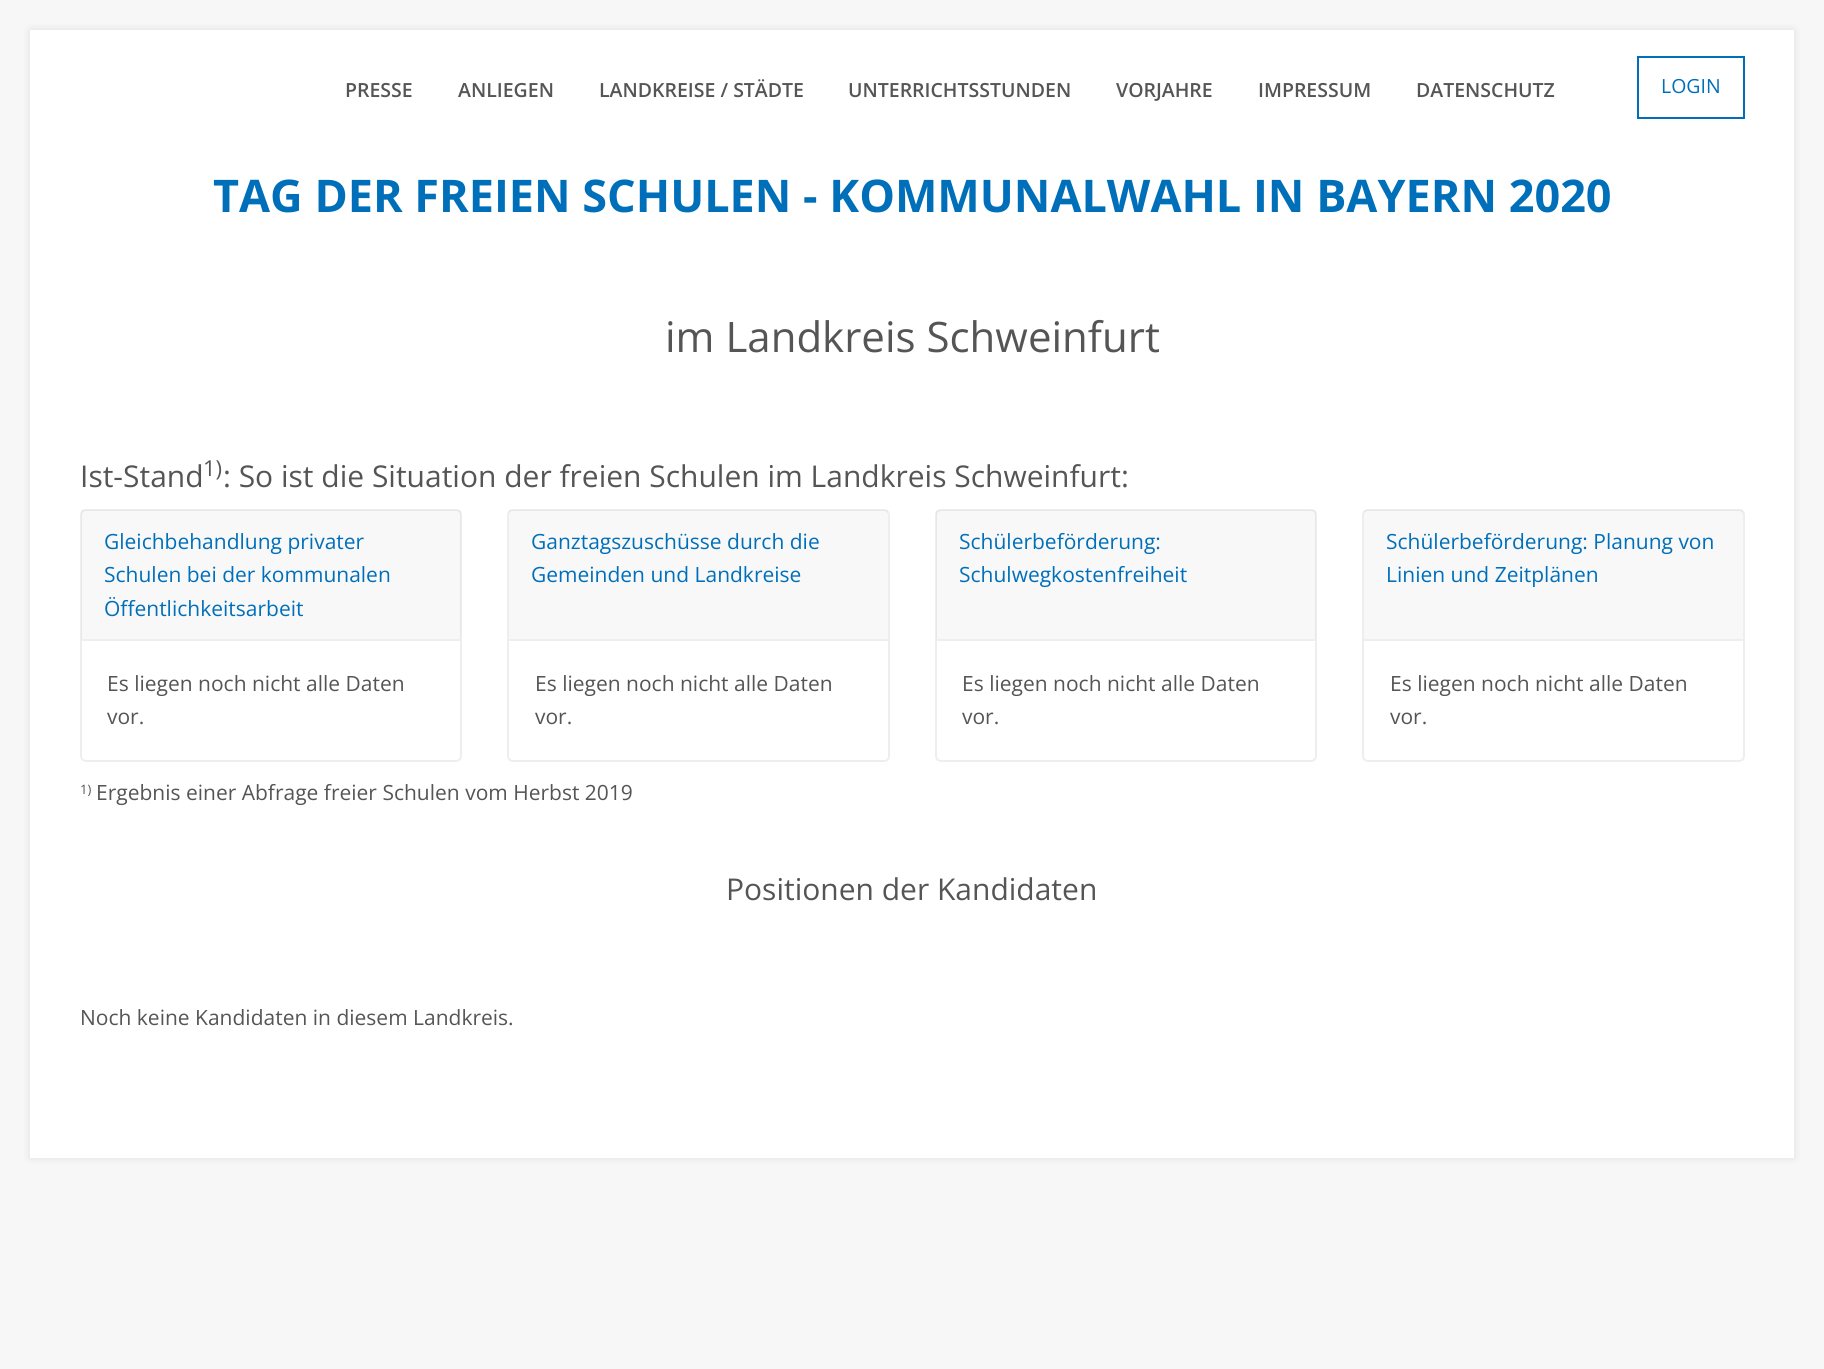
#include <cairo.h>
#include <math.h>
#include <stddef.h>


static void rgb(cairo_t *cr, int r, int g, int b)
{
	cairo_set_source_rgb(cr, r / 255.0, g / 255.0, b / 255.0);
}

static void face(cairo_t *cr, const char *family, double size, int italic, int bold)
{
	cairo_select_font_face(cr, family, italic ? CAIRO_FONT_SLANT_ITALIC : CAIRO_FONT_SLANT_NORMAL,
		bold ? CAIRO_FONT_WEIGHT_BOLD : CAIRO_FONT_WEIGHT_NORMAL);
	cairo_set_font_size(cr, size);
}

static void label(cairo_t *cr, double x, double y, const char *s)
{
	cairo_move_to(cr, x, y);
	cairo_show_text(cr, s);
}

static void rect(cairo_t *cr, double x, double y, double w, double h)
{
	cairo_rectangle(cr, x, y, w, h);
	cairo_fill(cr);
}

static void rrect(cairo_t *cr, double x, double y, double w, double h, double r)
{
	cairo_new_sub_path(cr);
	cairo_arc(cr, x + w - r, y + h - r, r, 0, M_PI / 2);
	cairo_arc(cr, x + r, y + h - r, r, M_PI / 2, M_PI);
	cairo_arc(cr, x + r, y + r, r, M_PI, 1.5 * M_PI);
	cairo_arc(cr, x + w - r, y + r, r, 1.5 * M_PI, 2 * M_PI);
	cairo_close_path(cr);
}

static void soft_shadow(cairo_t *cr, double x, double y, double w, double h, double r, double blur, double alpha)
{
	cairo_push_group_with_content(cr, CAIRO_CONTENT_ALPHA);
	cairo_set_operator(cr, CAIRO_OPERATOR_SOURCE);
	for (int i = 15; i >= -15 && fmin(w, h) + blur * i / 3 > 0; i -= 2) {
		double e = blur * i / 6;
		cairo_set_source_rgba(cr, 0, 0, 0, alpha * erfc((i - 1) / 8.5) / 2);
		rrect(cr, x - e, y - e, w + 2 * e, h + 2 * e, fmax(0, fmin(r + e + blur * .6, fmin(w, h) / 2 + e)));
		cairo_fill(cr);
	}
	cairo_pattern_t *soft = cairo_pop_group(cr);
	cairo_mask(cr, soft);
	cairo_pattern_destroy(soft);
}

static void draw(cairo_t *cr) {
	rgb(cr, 247, 247, 247);
	cairo_paint(cr);
	rgb(cr, 0, 0, 0);
	soft_shadow(cr, 30, 30, 1764, 1128, 0, 4, 0.1);
	rgb(cr, 255, 255, 255);
	rect(cr, 30, 30, 1764, 1128);
	face(cr, "Open Sans SemiBold", 19.5, 0, 0);
	rgb(cr, 85, 85, 85);
	label(cr, 345, 97, "PRESSE");
	label(cr, 458, 97, "ANLIEGEN");
	label(cr, 599, 97, "LANDKREISE / STÄDTE");
	label(cr, 848, 97, "UNTERRICHTSSTUNDEN");
	label(cr, 1116, 97, "VORJAHRE");
	label(cr, 1258, 97, "IMPRESSUM");
	label(cr, 1416, 97, "DATENSCHUTZ");
	cairo_rectangle(cr, 1638, 57, 106, 61);
	rgb(cr, 0, 111, 186);
	cairo_stroke(cr);
	face(cr, "Open Sans", 19.5, 0, 0);
	label(cr, 1661, 93, "LOGIN");
	face(cr, "Open Sans", 45, 0, 1);
	label(cr, 213, 212, "TAG DER FREIEN SCHULEN - KOMMUNALWAHL IN BAYERN 2020");
	face(cr, "Open Sans", 42, 0, 0);
	rgb(cr, 85, 85, 85);
	label(cr, 665, 352, "im Landkreis Schweinfurt");
	face(cr, "Open Sans", 30, 0, 0);
	label(cr, 80, 487, "Ist-Stand");
	face(cr, "Open Sans", 22, 0, 0);
	label(cr, 203, 476, "1)");
	face(cr, "Open Sans", 30, 0, 0);
	label(cr, 223, 487, ": So ist die Situation der freien Schulen im Landkreis Schweinfurt:");
	rrect(cr, 81, 510, 380, 251, 5);
	rgb(cr, 238, 238, 238);
	cairo_stroke(cr);
	cairo_set_source_rgba(cr, 0, 0, 0, 0.03);
	rect(cr, 81, 510, 380, 129);
	rgb(cr, 238, 238, 238);
	rect(cr, 81, 639, 380, 2);
	face(cr, "Open Sans", 21, 0, 0);
	rgb(cr, 0, 111, 186);
	label(cr, 104, 549, "Gleichbehandlung privater");
	label(cr, 104, 582, "Schulen bei der kommunalen");
	label(cr, 104, 616, "Öffentlichkeitsarbeit");
	rgb(cr, 85, 85, 85);
	label(cr, 107, 691, "Es liegen noch nicht alle Daten");
	label(cr, 107, 724, "vor.");
	rrect(cr, 508, 510, 381, 251, 5);
	rgb(cr, 238, 238, 238);
	cairo_stroke(cr);
	cairo_set_source_rgba(cr, 0, 0, 0, 0.03);
	rect(cr, 509, 510, 379, 129);
	rgb(cr, 238, 238, 238);
	rect(cr, 509, 639, 379, 2);
	rgb(cr, 0, 111, 186);
	label(cr, 531, 549, "Ganztagszuschüsse durch die");
	label(cr, 531, 582, "Gemeinden und Landkreise");
	rgb(cr, 85, 85, 85);
	label(cr, 535, 691, "Es liegen noch nicht alle Daten");
	label(cr, 535, 724, "vor.");
	rrect(cr, 936, 510, 380, 251, 5);
	rgb(cr, 238, 238, 238);
	cairo_stroke(cr);
	cairo_set_source_rgba(cr, 0, 0, 0, 0.03);
	rect(cr, 936, 510, 380, 129);
	rgb(cr, 238, 238, 238);
	rect(cr, 936, 639, 380, 2);
	rgb(cr, 0, 111, 186);
	label(cr, 959, 549, "Schülerbeförderung:");
	label(cr, 959, 582, "Schulwegkostenfreiheit");
	rgb(cr, 85, 85, 85);
	label(cr, 962, 691, "Es liegen noch nicht alle Daten");
	label(cr, 962, 724, "vor.");
	rrect(cr, 1363, 510, 381, 251, 5);
	rgb(cr, 238, 238, 238);
	cairo_stroke(cr);
	cairo_set_source_rgba(cr, 0, 0, 0, 0.03);
	rect(cr, 1364, 510, 379, 129);
	rgb(cr, 238, 238, 238);
	rect(cr, 1364, 639, 379, 2);
	rgb(cr, 0, 111, 186);
	label(cr, 1386, 549, "Schülerbeförderung: Planung von");
	label(cr, 1386, 582, "Linien und Zeitplänen");
	rgb(cr, 85, 85, 85);
	label(cr, 1390, 691, "Es liegen noch nicht alle Daten");
	label(cr, 1390, 724, "vor.");
	face(cr, "Open Sans", 13, 0, 0);
	label(cr, 80, 794, "1)");
	face(cr, "Open Sans", 21, 0, 0);
	label(cr, 96, 800, "Ergebnis einer Abfrage freier Schulen vom Herbst 2019");
	face(cr, "Open Sans", 30, 0, 0);
	label(cr, 726, 900, "Positionen der Kandidaten");
	face(cr, "Open Sans", 21, 0, 0);
	label(cr, 80, 1025, "Noch keine Kandidaten in diesem Landkreis.");
}

int main(void) {
	cairo_surface_t *surface = cairo_image_surface_create(CAIRO_FORMAT_RGB24, 1824, 1369);
	cairo_t *cr = cairo_create(surface);
	cairo_font_options_t *options = cairo_font_options_create();
	cairo_font_options_set_hint_metrics(options, CAIRO_HINT_METRICS_OFF);
	cairo_font_options_set_hint_style(options, CAIRO_HINT_STYLE_NONE);
	cairo_set_font_options(cr, options);
	cairo_set_miter_limit(cr, 4);
	draw(cr);
	cairo_surface_write_to_png(surface, "render.png");
	cairo_font_options_destroy(options);
	cairo_destroy(cr);
	cairo_surface_destroy(surface);
	return 0;
}
